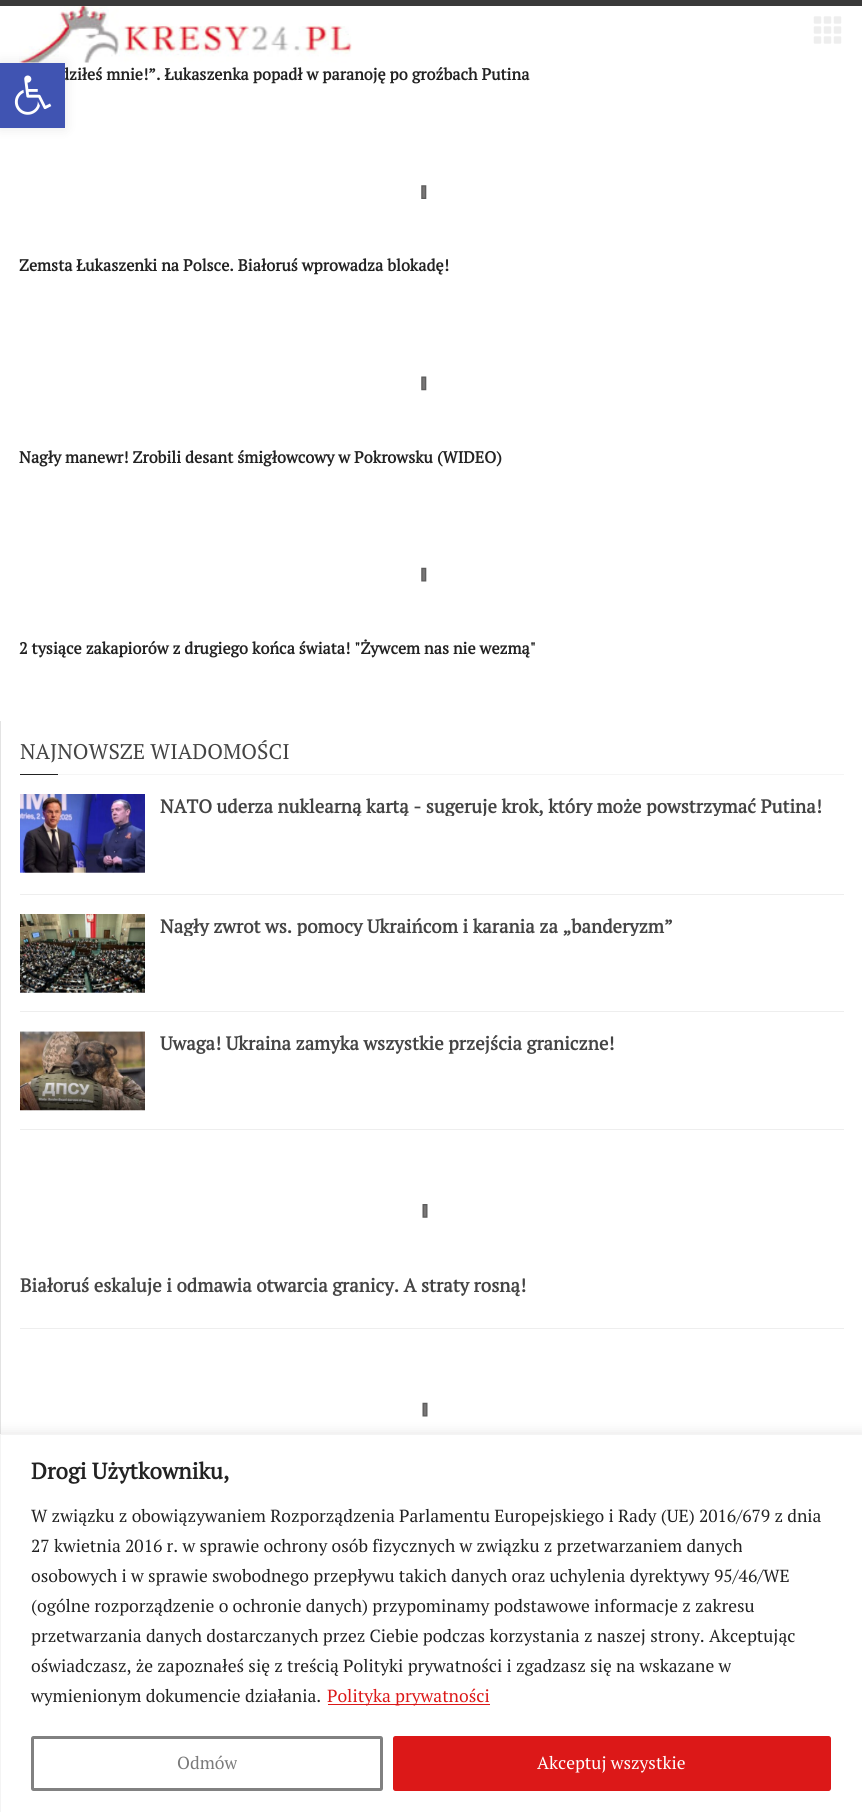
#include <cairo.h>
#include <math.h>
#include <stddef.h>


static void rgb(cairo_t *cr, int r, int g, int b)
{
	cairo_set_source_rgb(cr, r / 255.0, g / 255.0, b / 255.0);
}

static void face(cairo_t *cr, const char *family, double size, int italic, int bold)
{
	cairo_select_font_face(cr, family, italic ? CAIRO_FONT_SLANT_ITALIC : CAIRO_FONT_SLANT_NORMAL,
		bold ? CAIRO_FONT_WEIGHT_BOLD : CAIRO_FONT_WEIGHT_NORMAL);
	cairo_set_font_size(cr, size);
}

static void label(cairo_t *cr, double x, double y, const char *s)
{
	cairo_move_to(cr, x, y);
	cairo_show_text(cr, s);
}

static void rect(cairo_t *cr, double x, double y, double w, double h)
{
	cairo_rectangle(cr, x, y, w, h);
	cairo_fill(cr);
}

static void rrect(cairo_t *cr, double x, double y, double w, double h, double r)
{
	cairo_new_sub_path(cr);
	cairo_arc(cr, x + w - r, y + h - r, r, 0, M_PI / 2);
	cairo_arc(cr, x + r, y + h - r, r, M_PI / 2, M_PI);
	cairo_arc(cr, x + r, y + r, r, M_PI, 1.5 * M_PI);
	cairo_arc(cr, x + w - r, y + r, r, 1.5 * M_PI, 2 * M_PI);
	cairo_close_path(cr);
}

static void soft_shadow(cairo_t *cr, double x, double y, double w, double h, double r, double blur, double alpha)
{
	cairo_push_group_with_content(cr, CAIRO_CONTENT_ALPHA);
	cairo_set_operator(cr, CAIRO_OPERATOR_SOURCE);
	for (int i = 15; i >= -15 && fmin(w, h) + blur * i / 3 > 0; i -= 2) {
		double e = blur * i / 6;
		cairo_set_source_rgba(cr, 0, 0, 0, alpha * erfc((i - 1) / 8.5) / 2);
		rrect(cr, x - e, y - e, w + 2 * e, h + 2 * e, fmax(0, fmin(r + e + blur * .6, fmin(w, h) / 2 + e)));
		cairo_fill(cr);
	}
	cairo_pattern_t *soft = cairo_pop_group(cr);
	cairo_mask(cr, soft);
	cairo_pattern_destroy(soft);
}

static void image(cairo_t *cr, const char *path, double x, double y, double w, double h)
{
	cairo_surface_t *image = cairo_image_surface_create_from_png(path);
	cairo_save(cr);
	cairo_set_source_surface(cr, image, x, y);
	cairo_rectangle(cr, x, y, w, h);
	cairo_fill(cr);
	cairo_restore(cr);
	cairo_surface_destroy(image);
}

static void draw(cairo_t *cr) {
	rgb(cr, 255, 255, 255);
	cairo_paint(cr);
	image(cr, "image1.png", 19, 6, 333, 57);
	rgb(cr, 0, 0, 0);
	soft_shadow(cr, 0, 63, 65, 65, 0, 6, 0.1);
	face(cr, "PT Serif", 16.25, 0, 1);
	rgb(cr, 34, 34, 34);
	label(cr, 60, 80, "dziłeś mnie!”. Łukaszenka popadł w paranoję po groźbach Putina");
	rgb(cr, 64, 84, 178);
	rect(cr, 0, 63, 65, 65);
	image(cr, "image0.png", 14, 75, 38, 40);
	rgb(cr, 58, 58, 58);
	rect(cr, 0, 0, 862, 6);
	image(cr, "image2.png", 813, 16, 29, 28);
	image(cr, "image3.png", 421, 185, 6, 14);
	rgb(cr, 34, 34, 34);
	label(cr, 19, 271, "Zemsta Łukaszenki na Polsce. Białoruś wprowadza blokadę!");
	image(cr, "image4.png", 421, 376, 6, 15);
	label(cr, 19, 463, "Nagły manewr! Zrobili desant śmigłowcowy w Pokrowsku (WIDEO)");
	image(cr, "image5.png", 421, 567, 6, 15);
	label(cr, 19, 654, "2 tysiące zakapiorów z drugiego końca świata! \"Żywcem nas nie wezmą\"");
	rgb(cr, 227, 227, 227);
	rect(cr, 0, 721, 1, 713);
	rgb(cr, 245, 245, 245);
	rect(cr, 58, 774, 786, 1);
	face(cr, "PT Serif", 21.25, 0, 0);
	rgb(cr, 68, 68, 68);
	label(cr, 20, 759, "NAJNOWSZE WIADOMOŚCI");
	rgb(cr, 34, 34, 34);
	rect(cr, 20, 774, 38, 1);
	image(cr, "image6.png", 20, 794, 125, 79);
	cairo_save(cr);
	cairo_rectangle(cr, 160, 794, 684, 22);
	cairo_clip(cr);
	face(cr, "PT Serif", 18.75, 0, 1);
	rgb(cr, 68, 68, 68);
	label(cr, 160, 813, "NATO uderza nuklearną kartą - sugeruje krok, który może powstrzymać Putina!");
	cairo_restore(cr);
	rgb(cr, 238, 238, 238);
	rect(cr, 20, 894, 824, 1);
	image(cr, "image7.png", 20, 914, 125, 79);
	cairo_save(cr);
	cairo_rectangle(cr, 160, 914, 684, 22);
	cairo_clip(cr);
	face(cr, "PT Serif", 18.75, 0, 1);
	rgb(cr, 68, 68, 68);
	label(cr, 160, 933, "Nagły zwrot ws. pomocy Ukraińcom i karania za „banderyzm”");
	cairo_restore(cr);
	rect(cr, 20, 1011, 824, 1);
	image(cr, "image8.png", 20, 1031, 125, 80);
	face(cr, "PT Serif", 18.75, 0, 1);
	rgb(cr, 68, 68, 68);
	label(cr, 160, 1050, "Uwaga! Ukraina zamyka wszystkie przejścia graniczne!");
	rgb(cr, 238, 238, 238);
	rect(cr, 20, 1129, 824, 1);
	image(cr, "image9.png", 422, 1204, 6, 14);
	rgb(cr, 68, 68, 68);
	label(cr, 20, 1292, "Białoruś eskaluje i odmawia otwarcia granicy. A straty rosną!");
	rgb(cr, 238, 238, 238);
	rect(cr, 20, 1328, 824, 1);
	image(cr, "image10.png", 422, 1402, 6, 15);
	rgb(cr, 172, 171, 171);
	soft_shadow(cr, 0, 1433, 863, 378, 0, 6, 0.3);
	rgb(cr, 255, 255, 255);
	cairo_rectangle(cr, 0.5, 1434.5, 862, 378);
	cairo_fill_preserve(cr);
	rgb(cr, 244, 244, 244);
	cairo_set_line_width(cr, 1);
	cairo_stroke(cr);
	face(cr, "PT Serif", 22.5, 0, 1);
	rgb(cr, 34, 34, 34);
	label(cr, 31, 1479, "Drogi Użytkowniku,");
	face(cr, "PT Serif", 17.5, 0, 0);
	label(cr, 31, 1522, "W związku z obowiązywaniem Rozporządzenia Parlamentu Europejskiego i Rady (UE) 2016/679 z dnia");
	label(cr, 31, 1552, "27 kwietnia 2016 r. w sprawie ochrony osób fizycznych w związku z przetwarzaniem danych");
	label(cr, 31, 1582, "osobowych i w sprawie swobodnego przepływu takich danych oraz uchylenia dyrektywy 95/46/WE");
	label(cr, 31, 1612, "(ogólne rozporządzenie o ochronie danych) przypominamy podstawowe informacje z zakresu");
	label(cr, 31, 1642, "przetwarzania danych dostarczanych przez Ciebie podczas korzystania z naszej strony. Akceptując");
	label(cr, 31, 1672, "oświadczasz, że zapoznałeś się z treścią Polityki prywatności i zgadzasz się na wskazane w");
	label(cr, 31, 1702, "wymienionym dokumencie działania.");
	rgb(cr, 220, 24, 24);
	rect(cr, 328, 1704, 162, 1);
	label(cr, 327, 1702, "Polityka prywatności");
	rrect(cr, 32.5, 1737.5, 349, 52, 1);
	rgb(cr, 129, 129, 129);
	cairo_set_line_width(cr, 3);
	cairo_stroke(cr);
	rgb(cr, 122, 122, 122);
	label(cr, 177, 1769, "Odmów");
	rgb(cr, 220, 24, 24);
	rrect(cr, 394.5, 1737.5, 435, 52, 1);
	cairo_fill_preserve(cr);
	cairo_stroke(cr);
	rgb(cr, 255, 255, 255);
	label(cr, 537, 1769, "Akceptuj wszystkie");
}

int main(void) {
	cairo_surface_t *surface = cairo_image_surface_create(CAIRO_FORMAT_RGB24, 862, 1812);
	cairo_t *cr = cairo_create(surface);
	cairo_font_options_t *options = cairo_font_options_create();
	cairo_font_options_set_hint_metrics(options, CAIRO_HINT_METRICS_OFF);
	cairo_font_options_set_hint_style(options, CAIRO_HINT_STYLE_NONE);
	cairo_set_font_options(cr, options);
	cairo_set_miter_limit(cr, 4);
	draw(cr);
	cairo_surface_write_to_png(surface, "render.png");
	cairo_font_options_destroy(options);
	cairo_destroy(cr);
	cairo_surface_destroy(surface);
	return 0;
}
